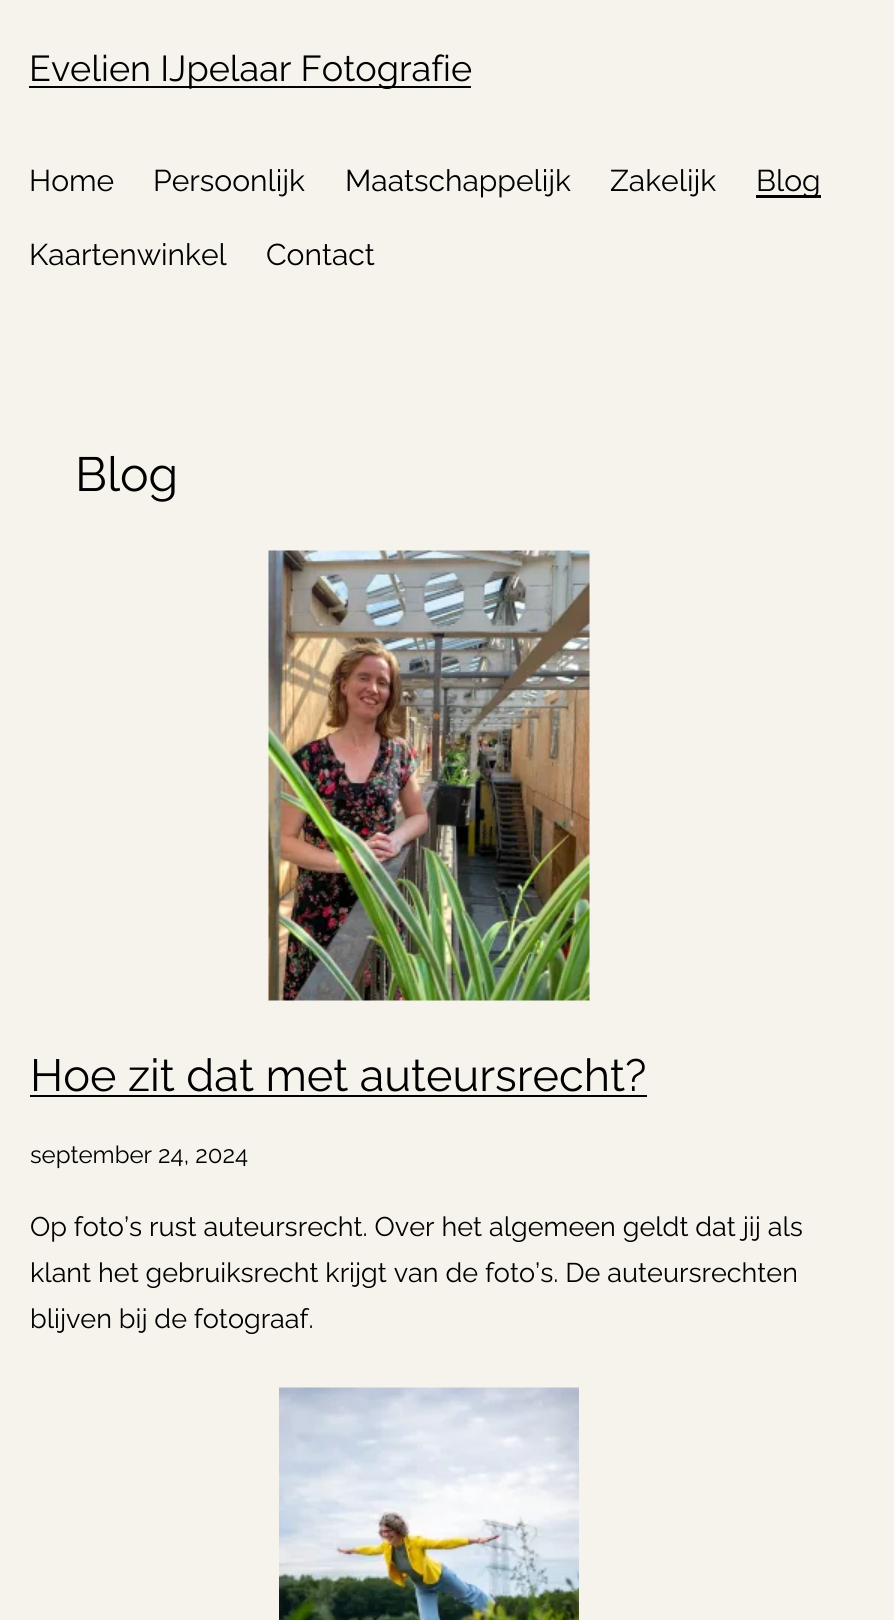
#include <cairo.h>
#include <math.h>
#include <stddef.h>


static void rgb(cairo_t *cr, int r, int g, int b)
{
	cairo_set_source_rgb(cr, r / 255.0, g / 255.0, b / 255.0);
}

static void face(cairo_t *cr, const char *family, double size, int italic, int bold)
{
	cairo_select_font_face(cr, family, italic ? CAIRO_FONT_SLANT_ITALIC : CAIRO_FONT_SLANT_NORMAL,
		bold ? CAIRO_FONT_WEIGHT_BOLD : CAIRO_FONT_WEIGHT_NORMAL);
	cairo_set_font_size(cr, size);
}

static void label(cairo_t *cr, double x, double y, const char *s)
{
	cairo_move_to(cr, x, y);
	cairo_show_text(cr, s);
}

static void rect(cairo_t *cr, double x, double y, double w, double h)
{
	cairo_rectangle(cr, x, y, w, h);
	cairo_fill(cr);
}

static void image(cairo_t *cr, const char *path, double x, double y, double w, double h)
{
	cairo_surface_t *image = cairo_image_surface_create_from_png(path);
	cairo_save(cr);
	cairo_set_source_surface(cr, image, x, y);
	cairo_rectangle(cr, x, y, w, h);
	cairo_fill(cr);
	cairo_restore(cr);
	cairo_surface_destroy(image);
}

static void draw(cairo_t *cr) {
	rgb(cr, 246, 242, 236);
	cairo_paint(cr);
	rgb(cr, 0, 0, 0);
	rect(cr, 29, 86, 442, 2);
	face(cr, "Raleway", 36, 0, 0);
	label(cr, 29, 81, "Evelien IJpelaar Fotografie");
	face(cr, "Raleway", 30, 0, 0);
	label(cr, 29, 191, "Home");
	label(cr, 153, 191, "Persoonlijk");
	label(cr, 345, 191, "Maatschappelijk");
	label(cr, 610, 191, "Zakelijk");
	rect(cr, 756, 195, 65, 3);
	label(cr, 756, 191, "Blog");
	label(cr, 29, 265, "Kaartenwinkel");
	label(cr, 266, 265, "Contact");
	face(cr, "Raleway", 48, 0, 0);
	label(cr, 75, 491, "Blog");
	image(cr, "image0.png", 268, 550, 322, 451);
	face(cr, "Raleway", 45, 0, 0);
	label(cr, 30, 1091, "Hoe zit dat met auteursrecht?");
	rect(cr, 30, 1095, 617, 2);
	face(cr, "Raleway", 24, 0, 0);
	label(cr, 30, 1163, "september 24, 2024");
	face(cr, "Raleway", 27, 0, 0);
	label(cr, 30, 1236, "Op foto’s rust auteursrecht. Over het algemeen geldt dat jij als");
	label(cr, 30, 1282, "klant het gebruiksrecht krijgt van de foto’s. De auteursrechten");
	label(cr, 30, 1328, "blijven bij de fotograaf.");
	image(cr, "image1.png", 279, 1387, 300, 233);
}

int main(void) {
	cairo_surface_t *surface = cairo_image_surface_create(CAIRO_FORMAT_RGB24, 894, 1620);
	cairo_t *cr = cairo_create(surface);
	cairo_font_options_t *options = cairo_font_options_create();
	cairo_font_options_set_hint_metrics(options, CAIRO_HINT_METRICS_OFF);
	cairo_font_options_set_hint_style(options, CAIRO_HINT_STYLE_NONE);
	cairo_set_font_options(cr, options);
	cairo_set_miter_limit(cr, 4);
	draw(cr);
	cairo_surface_write_to_png(surface, "render.png");
	cairo_font_options_destroy(options);
	cairo_destroy(cr);
	cairo_surface_destroy(surface);
	return 0;
}
